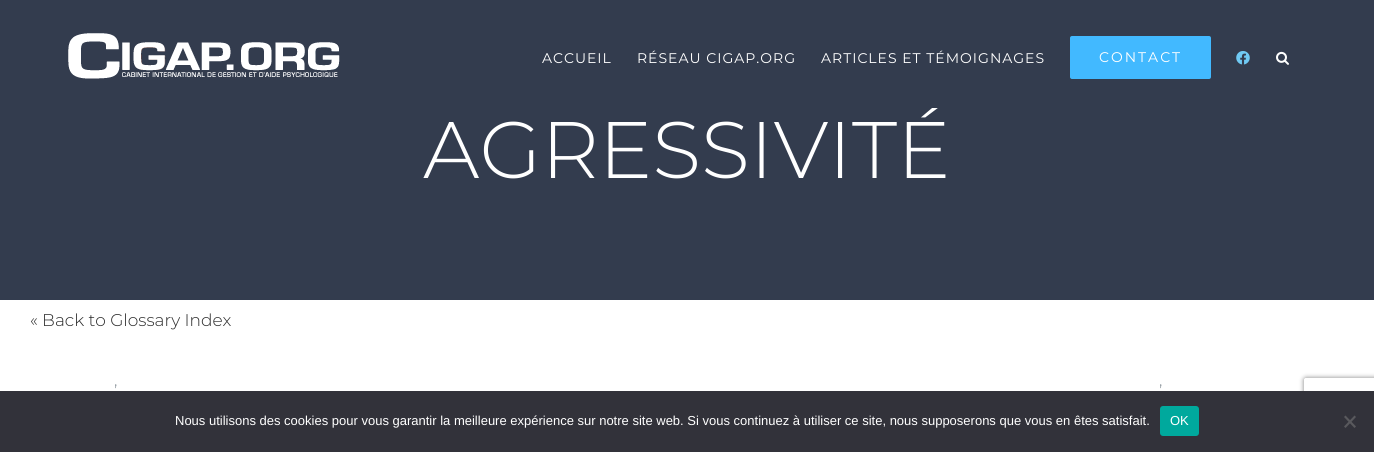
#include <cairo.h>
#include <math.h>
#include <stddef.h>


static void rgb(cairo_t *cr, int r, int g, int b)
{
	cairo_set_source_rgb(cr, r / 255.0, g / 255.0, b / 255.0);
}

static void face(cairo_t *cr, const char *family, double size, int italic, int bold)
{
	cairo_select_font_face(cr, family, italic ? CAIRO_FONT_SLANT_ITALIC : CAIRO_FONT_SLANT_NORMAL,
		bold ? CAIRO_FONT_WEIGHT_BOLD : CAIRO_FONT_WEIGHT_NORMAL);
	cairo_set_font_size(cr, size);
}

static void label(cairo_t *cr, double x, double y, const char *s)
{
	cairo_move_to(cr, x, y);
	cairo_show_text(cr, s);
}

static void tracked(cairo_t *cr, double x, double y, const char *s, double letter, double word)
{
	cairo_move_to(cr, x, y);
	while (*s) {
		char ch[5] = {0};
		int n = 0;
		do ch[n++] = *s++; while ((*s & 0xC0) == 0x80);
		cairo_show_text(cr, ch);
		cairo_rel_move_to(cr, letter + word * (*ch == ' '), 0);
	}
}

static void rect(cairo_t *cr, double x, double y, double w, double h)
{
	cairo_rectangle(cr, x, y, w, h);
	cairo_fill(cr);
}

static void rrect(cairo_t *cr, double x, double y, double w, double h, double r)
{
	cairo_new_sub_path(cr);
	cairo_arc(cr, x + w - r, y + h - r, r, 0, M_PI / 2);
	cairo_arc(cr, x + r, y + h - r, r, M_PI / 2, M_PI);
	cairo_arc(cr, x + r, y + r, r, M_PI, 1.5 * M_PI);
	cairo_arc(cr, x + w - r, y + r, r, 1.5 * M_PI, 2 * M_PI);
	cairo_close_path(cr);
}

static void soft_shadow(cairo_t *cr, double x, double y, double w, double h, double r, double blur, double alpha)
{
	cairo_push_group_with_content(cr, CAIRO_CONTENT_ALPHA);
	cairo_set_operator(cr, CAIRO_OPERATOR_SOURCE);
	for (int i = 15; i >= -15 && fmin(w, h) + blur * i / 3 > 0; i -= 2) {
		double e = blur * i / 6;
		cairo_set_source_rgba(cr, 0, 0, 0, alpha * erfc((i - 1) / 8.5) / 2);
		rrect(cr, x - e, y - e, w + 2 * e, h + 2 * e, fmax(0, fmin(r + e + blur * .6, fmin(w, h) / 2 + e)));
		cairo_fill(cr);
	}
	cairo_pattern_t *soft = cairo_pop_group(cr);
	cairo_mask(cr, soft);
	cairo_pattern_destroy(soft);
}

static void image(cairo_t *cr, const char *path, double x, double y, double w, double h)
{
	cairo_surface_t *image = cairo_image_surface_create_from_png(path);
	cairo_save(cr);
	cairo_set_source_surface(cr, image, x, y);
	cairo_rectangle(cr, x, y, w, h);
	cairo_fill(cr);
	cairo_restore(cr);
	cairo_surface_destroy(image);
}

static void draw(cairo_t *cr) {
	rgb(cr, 255, 255, 255);
	cairo_paint(cr);
	rgb(cr, 51, 60, 78);
	rect(cr, 0, 0, 1374, 300);
	image(cr, "image0.png", 68, 33, 272, 46);
	face(cr, "Montserrat", 14, 0, 0);
	rgb(cr, 255, 255, 255);
	tracked(cr, 542, 63, "ACCUEIL", 1, 0);
	tracked(cr, 637, 63, "RÉSEAU CIGAP.ORG", 1, 0);
	tracked(cr, 821, 63, "ARTICLES ET TÉMOIGNAGES", 1, 0);
	rgb(cr, 66, 185, 255);
	rrect(cr, 1070, 36, 141, 43, 2);
	cairo_fill(cr);
	rgb(cr, 255, 255, 255);
	tracked(cr, 1099, 62, "CONTACT", 2, 0);
	image(cr, "image1.png", 1236, 51, 14, 14);
	image(cr, "image2.png", 1276, 51, 13, 14);
	face(cr, "Montserrat Light", 80, 0, 0);
	label(cr, 423, 178, "AGRESSIVITÉ");
	face(cr, "Montserrat Light", 17, 0, 0);
	rgb(cr, 43, 43, 43);
	label(cr, 30, 326, "« Back to Glossary Index");
	rgb(cr, 126, 136, 144);
	label(cr, 114, 397, "’");
	label(cr, 1159, 397, "’");
	cairo_save(cr);
	cairo_set_fill_rule(cr, CAIRO_FILL_RULE_EVEN_ODD);
	cairo_new_path(cr);
	cairo_move_to(cr, 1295, 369);
	cairo_line_to(cr, 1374, 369);
	cairo_line_to(cr, 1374, 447);
	cairo_line_to(cr, 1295, 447);
	cairo_close_path(cr);
	cairo_move_to(cr, 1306, 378);
	cairo_line_to(cr, 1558, 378);
	cairo_curve_to(cr, 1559, 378, 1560, 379, 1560, 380);
	cairo_line_to(cr, 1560, 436);
	cairo_curve_to(cr, 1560, 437, 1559, 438, 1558, 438);
	cairo_line_to(cr, 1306, 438);
	cairo_curve_to(cr, 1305, 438, 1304, 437, 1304, 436);
	cairo_line_to(cr, 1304, 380);
	cairo_curve_to(cr, 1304, 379, 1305, 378, 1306, 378);
	cairo_close_path(cr);
	cairo_clip(cr);
	rgb(cr, 128, 128, 128);
	soft_shadow(cr, 1304, 378, 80, 60, 2, 2.5, 1);
	cairo_restore(cr);
	rgb(cr, 50, 50, 58);
	rect(cr, 0, 391, 1374, 61);
	face(cr, "Liberation Sans", 13, 0, 0);
	rgb(cr, 255, 255, 255);
	label(cr, 175, 425, "Nous utilisons des cookies pour vous garantir la meilleure expérience sur notre site web. Si vous continuez à utiliser ce site, nous supposerons que vous en êtes satisfait.");
	rgb(cr, 0, 169, 157);
	rrect(cr, 1160, 406, 39, 30, 3);
	cairo_fill(cr);
	rgb(cr, 255, 255, 255);
	label(cr, 1170, 425, "OK");
	rgb(cr, 89, 89, 93);
	cairo_new_path(cr);
	cairo_move_to(cr, 1354.5, 415.5);
	cairo_line_to(cr, 1356, 417);
	cairo_line_to(cr, 1345.5, 428);
	cairo_line_to(cr, 1344, 426.5);
	cairo_close_path(cr);
	cairo_fill(cr);
	cairo_new_path(cr);
	cairo_move_to(cr, 1344, 417);
	cairo_line_to(cr, 1345.5, 415.5);
	cairo_line_to(cr, 1356, 426.5);
	cairo_line_to(cr, 1354.5, 428);
	cairo_close_path(cr);
	cairo_fill(cr);
}

int main(void) {
	cairo_surface_t *surface = cairo_image_surface_create(CAIRO_FORMAT_RGB24, 1374, 452);
	cairo_t *cr = cairo_create(surface);
	cairo_font_options_t *options = cairo_font_options_create();
	cairo_font_options_set_hint_metrics(options, CAIRO_HINT_METRICS_OFF);
	cairo_font_options_set_hint_style(options, CAIRO_HINT_STYLE_NONE);
	cairo_set_font_options(cr, options);
	cairo_set_miter_limit(cr, 4);
	draw(cr);
	cairo_surface_write_to_png(surface, "render.png");
	cairo_font_options_destroy(options);
	cairo_destroy(cr);
	cairo_surface_destroy(surface);
	return 0;
}
